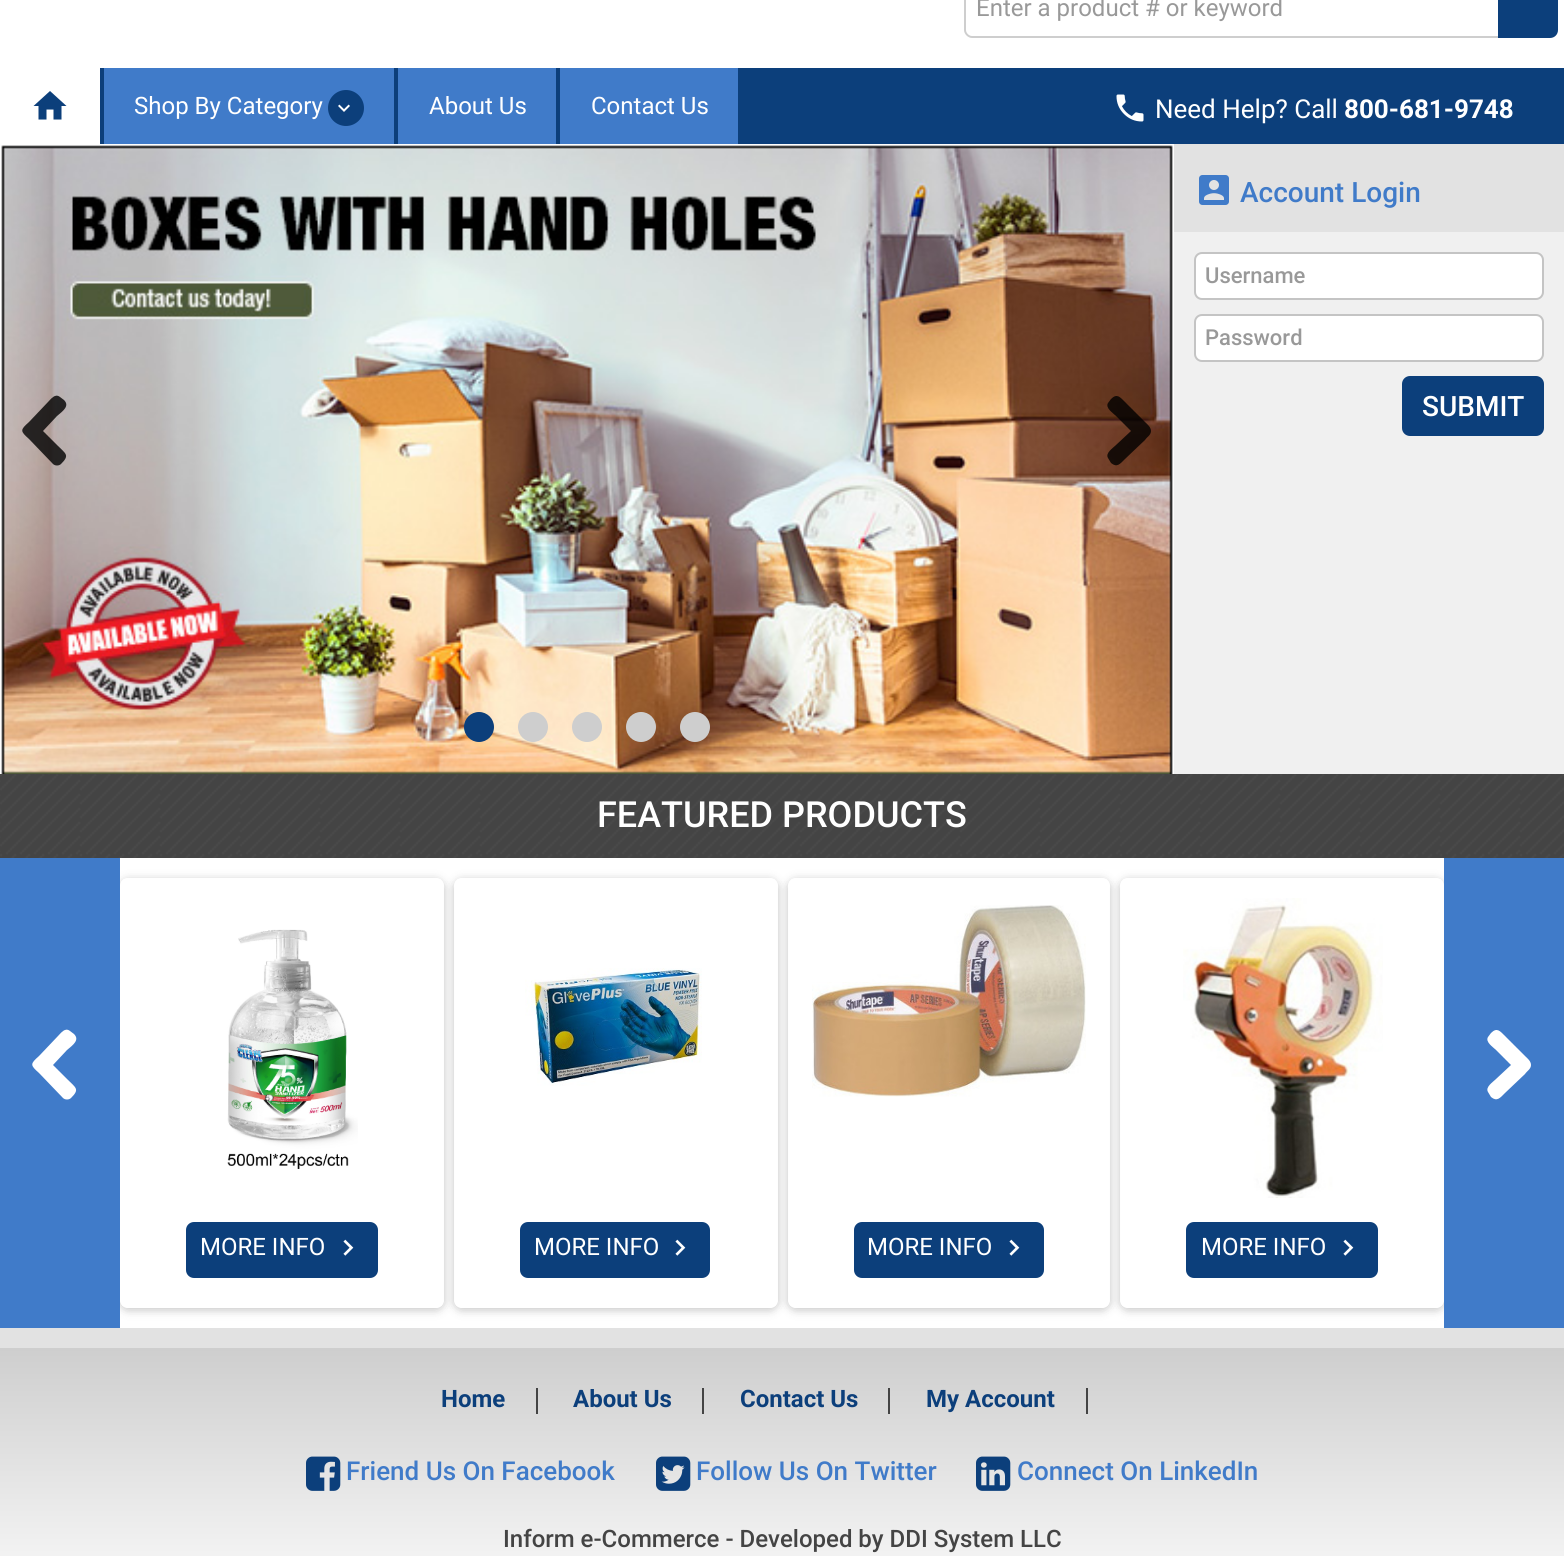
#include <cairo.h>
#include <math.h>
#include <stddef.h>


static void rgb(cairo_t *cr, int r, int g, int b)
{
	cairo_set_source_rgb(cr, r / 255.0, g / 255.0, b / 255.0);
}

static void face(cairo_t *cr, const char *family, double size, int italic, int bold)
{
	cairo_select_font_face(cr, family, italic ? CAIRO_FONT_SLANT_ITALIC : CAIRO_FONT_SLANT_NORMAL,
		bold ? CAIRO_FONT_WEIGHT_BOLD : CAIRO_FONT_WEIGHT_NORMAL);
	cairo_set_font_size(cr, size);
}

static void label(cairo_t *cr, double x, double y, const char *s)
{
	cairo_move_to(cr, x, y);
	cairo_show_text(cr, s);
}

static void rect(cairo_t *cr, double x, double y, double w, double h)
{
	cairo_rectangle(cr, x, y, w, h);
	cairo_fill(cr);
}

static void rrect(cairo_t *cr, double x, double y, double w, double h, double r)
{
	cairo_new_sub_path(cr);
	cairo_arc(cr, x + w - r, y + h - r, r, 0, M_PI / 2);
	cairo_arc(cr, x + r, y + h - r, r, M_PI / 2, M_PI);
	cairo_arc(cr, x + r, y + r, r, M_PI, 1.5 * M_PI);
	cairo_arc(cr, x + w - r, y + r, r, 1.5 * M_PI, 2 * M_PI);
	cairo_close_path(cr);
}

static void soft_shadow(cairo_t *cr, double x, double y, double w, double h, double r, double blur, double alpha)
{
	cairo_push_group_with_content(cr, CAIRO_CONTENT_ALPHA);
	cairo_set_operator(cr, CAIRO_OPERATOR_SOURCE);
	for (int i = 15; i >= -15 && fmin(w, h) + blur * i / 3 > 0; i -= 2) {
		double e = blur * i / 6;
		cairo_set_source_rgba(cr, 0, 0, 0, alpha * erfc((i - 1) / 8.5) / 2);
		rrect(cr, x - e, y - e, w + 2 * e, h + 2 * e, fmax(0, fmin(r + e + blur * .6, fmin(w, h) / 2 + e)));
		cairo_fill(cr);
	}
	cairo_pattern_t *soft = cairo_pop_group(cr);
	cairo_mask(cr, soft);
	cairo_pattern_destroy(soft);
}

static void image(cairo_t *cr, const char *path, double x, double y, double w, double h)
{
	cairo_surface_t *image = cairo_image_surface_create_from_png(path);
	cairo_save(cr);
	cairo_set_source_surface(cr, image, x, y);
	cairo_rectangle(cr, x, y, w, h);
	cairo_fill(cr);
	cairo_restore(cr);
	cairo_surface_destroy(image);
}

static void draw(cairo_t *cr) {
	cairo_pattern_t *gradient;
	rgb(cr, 255, 255, 255);
	cairo_paint(cr);
	rgb(cr, 206, 206, 206);
	cairo_set_fill_rule(cr, CAIRO_FILL_RULE_EVEN_ODD);
	cairo_new_path(cr);
	cairo_move_to(cr, 972, -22);
	cairo_line_to(cr, 1498, -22);
	cairo_line_to(cr, 1498, 38);
	cairo_line_to(cr, 972, 38);
	cairo_curve_to(cr, 968, 38, 964, 34, 964, 30);
	cairo_line_to(cr, 964, -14);
	cairo_curve_to(cr, 964, -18, 968, -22, 972, -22);
	cairo_close_path(cr);
	cairo_move_to(cr, 972, -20);
	cairo_line_to(cr, 1498, -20);
	cairo_line_to(cr, 1498, 36);
	cairo_line_to(cr, 972, 36);
	cairo_curve_to(cr, 969, 36, 966, 33, 966, 30);
	cairo_line_to(cr, 966, -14);
	cairo_curve_to(cr, 966, -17, 969, -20, 972, -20);
	cairo_close_path(cr);
	cairo_fill(cr);
	face(cr, "Roboto", 24, 0, 0);
	rgb(cr, 153, 153, 153);
	label(cr, 976, 16, "Enter a product # or keyword");
	rgb(cr, 12, 63, 123);
	cairo_new_path(cr);
	cairo_move_to(cr, 1498, -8);
	cairo_line_to(cr, 1550, -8);
	cairo_curve_to(cr, 1554.5, -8, 1558, -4.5, 1558, 0);
	cairo_line_to(cr, 1558, 30);
	cairo_curve_to(cr, 1558, 34.5, 1554.5, 38, 1550, 38);
	cairo_line_to(cr, 1498, 38);
	cairo_close_path(cr);
	cairo_fill(cr);
	rect(cr, 100, 68, 1464, 76);
	cairo_set_fill_rule(cr, CAIRO_FILL_RULE_WINDING);
	cairo_new_path(cr);
	cairo_move_to(cr, 46.5, 119.5);
	cairo_line_to(cr, 38.5, 119.5);
	cairo_line_to(cr, 38.5, 106);
	cairo_line_to(cr, 33.5, 106);
	cairo_line_to(cr, 50, 91);
	cairo_line_to(cr, 66.5, 106);
	cairo_line_to(cr, 61.5, 106);
	cairo_line_to(cr, 61.5, 119.5);
	cairo_line_to(cr, 53.5, 119.5);
	cairo_line_to(cr, 53.5, 109.5);
	cairo_line_to(cr, 46.5, 109.5);
	cairo_close_path(cr);
	cairo_fill(cr);
	rgb(cr, 64, 123, 201);
	rect(cr, 104, 68, 290, 76);
	rgb(cr, 255, 255, 255);
	label(cr, 134, 114, "Shop By Category");
	rgb(cr, 12, 63, 123);
	cairo_new_path(cr);
	cairo_arc(cr, 346, 108, 18, 0, 2 * M_PI);
	cairo_fill(cr);
	image(cr, "image0.png", 338, 104, 12, 8);
	rgb(cr, 64, 123, 201);
	rect(cr, 398, 68, 158, 76);
	rgb(cr, 255, 255, 255);
	label(cr, 429, 114, "About Us");
	rgb(cr, 64, 123, 201);
	rect(cr, 560, 68, 178, 76);
	rgb(cr, 255, 255, 255);
	label(cr, 591, 114, "Contact Us");
	image(cr, "image1.png", 1116, 94, 28, 28);
	face(cr, "Roboto", 26, 0, 0);
	label(cr, 1155, 118, "Need Help? Call");
	face(cr, "Roboto", 26, 0, 1);
	label(cr, 1344, 118, "800-681-9748");
	rgb(cr, 240, 240, 240);
	rect(cr, 1174, 232, 390, 542);
	image(cr, "image2.png", 0, 144, 1174, 630);
	cairo_set_source_rgba(cr, 0, 0, 0, 0.8);
	cairo_new_path(cr);
	cairo_move_to(cr, 53, 464);
	cairo_line_to(cr, 29, 439);
	cairo_curve_to(cr, 20, 431, 20, 430, 29, 422);
	cairo_line_to(cr, 48, 402);
	cairo_curve_to(cr, 51, 399, 55, 393, 60, 397);
	cairo_line_to(cr, 64, 400);
	cairo_curve_to(cr, 70, 406, 63, 411, 57, 416);
	cairo_line_to(cr, 43, 431);
	cairo_line_to(cr, 57, 445);
	cairo_curve_to(cr, 66, 454, 70, 455, 61, 464);
	cairo_curve_to(cr, 59, 466, 55, 466, 53, 464);
	cairo_close_path(cr);
	cairo_fill(cr);
	cairo_new_path(cr);
	cairo_move_to(cr, 1151, 431);
	cairo_curve_to(cr, 1151, 435, 1147, 437, 1145, 440);
	cairo_line_to(cr, 1125, 459);
	cairo_curve_to(cr, 1120, 464, 1117, 468, 1111, 463);
	cairo_line_to(cr, 1108, 458);
	cairo_curve_to(cr, 1105, 453, 1113, 448, 1116, 445);
	cairo_line_to(cr, 1131, 431);
	cairo_line_to(cr, 1116, 416);
	cairo_curve_to(cr, 1113, 413, 1105, 408, 1108, 403);
	cairo_line_to(cr, 1111, 399);
	cairo_curve_to(cr, 1117, 393, 1120, 397, 1125, 402);
	cairo_line_to(cr, 1145, 422);
	cairo_curve_to(cr, 1147, 424, 1151, 427, 1151, 431);
	cairo_close_path(cr);
	cairo_fill(cr);
	rgb(cr, 12, 63, 123);
	cairo_arc(cr, 479, 727, 15, 0, 2 * M_PI);
	cairo_fill(cr);
	rgb(cr, 206, 206, 206);
	cairo_arc(cr, 533, 727, 15, 0, 2 * M_PI);
	cairo_fill(cr);
	cairo_arc(cr, 587, 727, 15, 0, 2 * M_PI);
	cairo_fill(cr);
	cairo_arc(cr, 641, 727, 15, 0, 2 * M_PI);
	cairo_fill(cr);
	cairo_arc(cr, 695, 727, 15, 0, 2 * M_PI);
	cairo_fill(cr);
	rgb(cr, 226, 226, 226);
	rect(cr, 1174, 144, 390, 88);
	image(cr, "image3.png", 1199, 175, 30, 30);
	face(cr, "Roboto Medium", 28, 0, 0);
	rgb(cr, 64, 123, 201);
	label(cr, 1240, 202, "Account Login");
	rgb(cr, 255, 255, 255);
	rrect(cr, 1195, 253, 348, 46, 7);
	cairo_fill_preserve(cr);
	rgb(cr, 196, 196, 196);
	cairo_stroke(cr);
	face(cr, "Roboto Medium", 22, 0, 0);
	rgb(cr, 153, 153, 153);
	label(cr, 1205, 283, "Username");
	rgb(cr, 255, 255, 255);
	rrect(cr, 1195, 315, 348, 46, 7);
	cairo_fill_preserve(cr);
	rgb(cr, 196, 196, 196);
	cairo_stroke(cr);
	rgb(cr, 153, 153, 153);
	label(cr, 1205, 345, "Password");
	rgb(cr, 12, 63, 123);
	rrect(cr, 1402, 376, 142, 60, 8);
	cairo_fill(cr);
	face(cr, "Roboto Medium", 28, 0, 0);
	rgb(cr, 255, 255, 255);
	label(cr, 1422, 416, "SUBMIT");
	image(cr, "image4.png", 0, 774, 1564, 84);
	face(cr, "Roboto Medium", 36, 0, 0);
	label(cr, 597, 827, "FEATURED PRODUCTS");
	rgb(cr, 64, 123, 201);
	rect(cr, 0, 858, 1564, 470);
	rgb(cr, 255, 255, 255);
	cairo_new_path(cr);
	cairo_move_to(cr, 63, 1098);
	cairo_line_to(cr, 39, 1073);
	cairo_curve_to(cr, 30, 1065, 30, 1064, 39, 1056);
	cairo_line_to(cr, 58, 1036);
	cairo_curve_to(cr, 61, 1033, 65, 1027, 70, 1031);
	cairo_line_to(cr, 74, 1034);
	cairo_curve_to(cr, 80, 1040, 73, 1045, 67, 1050);
	cairo_line_to(cr, 53, 1065);
	cairo_line_to(cr, 67, 1079);
	cairo_curve_to(cr, 76, 1088, 80, 1089, 71, 1098);
	cairo_curve_to(cr, 69, 1100, 65, 1100, 63, 1098);
	cairo_close_path(cr);
	cairo_fill(cr);
	cairo_new_path(cr);
	cairo_move_to(cr, 1531, 1065);
	cairo_curve_to(cr, 1531, 1069, 1527, 1071, 1525, 1074);
	cairo_line_to(cr, 1505, 1093);
	cairo_curve_to(cr, 1500, 1098, 1497, 1102, 1491, 1097);
	cairo_line_to(cr, 1488, 1092);
	cairo_curve_to(cr, 1485, 1087, 1493, 1082, 1496, 1079);
	cairo_line_to(cr, 1511, 1065);
	cairo_line_to(cr, 1496, 1050);
	cairo_curve_to(cr, 1493, 1047, 1485, 1042, 1488, 1037);
	cairo_line_to(cr, 1491, 1033);
	cairo_curve_to(cr, 1497, 1027, 1500, 1031, 1505, 1036);
	cairo_line_to(cr, 1525, 1056);
	cairo_curve_to(cr, 1527, 1058, 1531, 1061, 1531, 1065);
	cairo_close_path(cr);
	cairo_fill(cr);
	rect(cr, 120, 858, 1324, 470);
	cairo_save(cr);
	cairo_rectangle(cr, 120, 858, 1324, 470);
	cairo_clip(cr);
	cairo_set_fill_rule(cr, CAIRO_FILL_RULE_EVEN_ODD);
	cairo_new_path(cr);
	cairo_move_to(cr, 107, 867);
	cairo_line_to(cr, 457, 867);
	cairo_line_to(cr, 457, 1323);
	cairo_line_to(cr, 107, 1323);
	cairo_close_path(cr);
	cairo_move_to(cr, 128, 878);
	cairo_line_to(cr, 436, 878);
	cairo_curve_to(cr, 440.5, 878, 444, 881.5, 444, 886);
	cairo_line_to(cr, 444, 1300);
	cairo_curve_to(cr, 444, 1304.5, 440.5, 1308, 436, 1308);
	cairo_line_to(cr, 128, 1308);
	cairo_curve_to(cr, 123.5, 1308, 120, 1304.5, 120, 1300);
	cairo_line_to(cr, 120, 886);
	cairo_curve_to(cr, 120, 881.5, 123.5, 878, 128, 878);
	cairo_close_path(cr);
	cairo_clip(cr);
	rgb(cr, 0, 0, 0);
	soft_shadow(cr, 120, 880, 324, 430, 8, 4, 0.12);
	cairo_restore(cr);
	cairo_save(cr);
	cairo_rectangle(cr, 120, 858, 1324, 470);
	cairo_clip(cr);
	cairo_set_fill_rule(cr, CAIRO_FILL_RULE_EVEN_ODD);
	cairo_new_path(cr);
	cairo_move_to(cr, 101, 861);
	cairo_line_to(cr, 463, 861);
	cairo_line_to(cr, 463, 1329);
	cairo_line_to(cr, 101, 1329);
	cairo_close_path(cr);
	cairo_move_to(cr, 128, 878);
	cairo_line_to(cr, 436, 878);
	cairo_curve_to(cr, 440.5, 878, 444, 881.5, 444, 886);
	cairo_line_to(cr, 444, 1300);
	cairo_curve_to(cr, 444, 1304.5, 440.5, 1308, 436, 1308);
	cairo_line_to(cr, 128, 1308);
	cairo_curve_to(cr, 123.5, 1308, 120, 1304.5, 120, 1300);
	cairo_line_to(cr, 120, 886);
	cairo_curve_to(cr, 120, 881.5, 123.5, 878, 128, 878);
	cairo_close_path(cr);
	cairo_clip(cr);
	rgb(cr, 0, 0, 0);
	soft_shadow(cr, 120, 880, 324, 430, 8, 6, 0.12);
	cairo_restore(cr);
	image(cr, "image5.png", 227, 929, 131, 240);
	rgb(cr, 12, 63, 123);
	rrect(cr, 186, 1222, 192, 56, 8);
	cairo_fill(cr);
	face(cr, "Roboto", 24, 0, 0);
	rgb(cr, 255, 255, 255);
	label(cr, 200, 1255, "MORE INFO");
	image(cr, "image6.png", 343, 1239, 11, 17);
	cairo_save(cr);
	cairo_set_fill_rule(cr, CAIRO_FILL_RULE_EVEN_ODD);
	cairo_new_path(cr);
	cairo_move_to(cr, 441, 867);
	cairo_line_to(cr, 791, 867);
	cairo_line_to(cr, 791, 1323);
	cairo_line_to(cr, 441, 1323);
	cairo_close_path(cr);
	cairo_move_to(cr, 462, 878);
	cairo_line_to(cr, 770, 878);
	cairo_curve_to(cr, 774.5, 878, 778, 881.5, 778, 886);
	cairo_line_to(cr, 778, 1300);
	cairo_curve_to(cr, 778, 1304.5, 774.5, 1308, 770, 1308);
	cairo_line_to(cr, 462, 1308);
	cairo_curve_to(cr, 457.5, 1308, 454, 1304.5, 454, 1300);
	cairo_line_to(cr, 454, 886);
	cairo_curve_to(cr, 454, 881.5, 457.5, 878, 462, 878);
	cairo_close_path(cr);
	cairo_clip(cr);
	rgb(cr, 0, 0, 0);
	soft_shadow(cr, 454, 880, 324, 430, 8, 4, 0.12);
	cairo_restore(cr);
	cairo_save(cr);
	cairo_set_fill_rule(cr, CAIRO_FILL_RULE_EVEN_ODD);
	cairo_new_path(cr);
	cairo_move_to(cr, 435, 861);
	cairo_line_to(cr, 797, 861);
	cairo_line_to(cr, 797, 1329);
	cairo_line_to(cr, 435, 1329);
	cairo_close_path(cr);
	cairo_move_to(cr, 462, 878);
	cairo_line_to(cr, 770, 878);
	cairo_curve_to(cr, 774.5, 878, 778, 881.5, 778, 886);
	cairo_line_to(cr, 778, 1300);
	cairo_curve_to(cr, 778, 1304.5, 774.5, 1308, 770, 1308);
	cairo_line_to(cr, 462, 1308);
	cairo_curve_to(cr, 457.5, 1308, 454, 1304.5, 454, 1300);
	cairo_line_to(cr, 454, 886);
	cairo_curve_to(cr, 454, 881.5, 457.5, 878, 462, 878);
	cairo_close_path(cr);
	cairo_clip(cr);
	rgb(cr, 0, 0, 0);
	soft_shadow(cr, 454, 880, 324, 430, 8, 6, 0.12);
	cairo_restore(cr);
	image(cr, "image7.png", 525, 968, 177, 118);
	rgb(cr, 12, 63, 123);
	rrect(cr, 520, 1222, 190, 56, 8);
	cairo_fill(cr);
	rgb(cr, 255, 255, 255);
	label(cr, 534, 1255, "MORE INFO");
	image(cr, "image6.png", 675, 1239, 11, 17);
	cairo_save(cr);
	cairo_set_fill_rule(cr, CAIRO_FILL_RULE_EVEN_ODD);
	cairo_new_path(cr);
	cairo_move_to(cr, 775, 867);
	cairo_line_to(cr, 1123, 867);
	cairo_line_to(cr, 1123, 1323);
	cairo_line_to(cr, 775, 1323);
	cairo_close_path(cr);
	cairo_move_to(cr, 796, 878);
	cairo_line_to(cr, 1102, 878);
	cairo_curve_to(cr, 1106.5, 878, 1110, 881.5, 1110, 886);
	cairo_line_to(cr, 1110, 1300);
	cairo_curve_to(cr, 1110, 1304.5, 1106.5, 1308, 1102, 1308);
	cairo_line_to(cr, 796, 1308);
	cairo_curve_to(cr, 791.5, 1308, 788, 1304.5, 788, 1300);
	cairo_line_to(cr, 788, 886);
	cairo_curve_to(cr, 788, 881.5, 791.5, 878, 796, 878);
	cairo_close_path(cr);
	cairo_clip(cr);
	rgb(cr, 0, 0, 0);
	soft_shadow(cr, 788, 880, 322, 430, 8, 4, 0.12);
	cairo_restore(cr);
	cairo_save(cr);
	cairo_set_fill_rule(cr, CAIRO_FILL_RULE_EVEN_ODD);
	cairo_new_path(cr);
	cairo_move_to(cr, 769, 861);
	cairo_line_to(cr, 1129, 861);
	cairo_line_to(cr, 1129, 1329);
	cairo_line_to(cr, 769, 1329);
	cairo_close_path(cr);
	cairo_move_to(cr, 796, 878);
	cairo_line_to(cr, 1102, 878);
	cairo_curve_to(cr, 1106.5, 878, 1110, 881.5, 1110, 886);
	cairo_line_to(cr, 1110, 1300);
	cairo_curve_to(cr, 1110, 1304.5, 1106.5, 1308, 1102, 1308);
	cairo_line_to(cr, 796, 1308);
	cairo_curve_to(cr, 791.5, 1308, 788, 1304.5, 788, 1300);
	cairo_line_to(cr, 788, 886);
	cairo_curve_to(cr, 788, 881.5, 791.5, 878, 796, 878);
	cairo_close_path(cr);
	cairo_clip(cr);
	rgb(cr, 0, 0, 0);
	soft_shadow(cr, 788, 880, 322, 430, 8, 6, 0.12);
	cairo_restore(cr);
	image(cr, "image8.png", 812, 905, 274, 192);
	rgb(cr, 12, 63, 123);
	rrect(cr, 854, 1222, 190, 56, 8);
	cairo_fill(cr);
	rgb(cr, 255, 255, 255);
	label(cr, 867, 1255, "MORE INFO");
	image(cr, "image6.png", 1009, 1239, 11, 17);
	cairo_save(cr);
	cairo_rectangle(cr, 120, 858, 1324, 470);
	cairo_clip(cr);
	cairo_set_fill_rule(cr, CAIRO_FILL_RULE_EVEN_ODD);
	cairo_new_path(cr);
	cairo_move_to(cr, 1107, 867);
	cairo_line_to(cr, 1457, 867);
	cairo_line_to(cr, 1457, 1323);
	cairo_line_to(cr, 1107, 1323);
	cairo_close_path(cr);
	cairo_move_to(cr, 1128, 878);
	cairo_line_to(cr, 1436, 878);
	cairo_curve_to(cr, 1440.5, 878, 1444, 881.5, 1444, 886);
	cairo_line_to(cr, 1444, 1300);
	cairo_curve_to(cr, 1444, 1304.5, 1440.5, 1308, 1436, 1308);
	cairo_line_to(cr, 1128, 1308);
	cairo_curve_to(cr, 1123.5, 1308, 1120, 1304.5, 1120, 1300);
	cairo_line_to(cr, 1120, 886);
	cairo_curve_to(cr, 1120, 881.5, 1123.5, 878, 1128, 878);
	cairo_close_path(cr);
	cairo_clip(cr);
	rgb(cr, 0, 0, 0);
	soft_shadow(cr, 1120, 880, 324, 430, 8, 4, 0.12);
	cairo_restore(cr);
	cairo_save(cr);
	cairo_rectangle(cr, 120, 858, 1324, 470);
	cairo_clip(cr);
	cairo_set_fill_rule(cr, CAIRO_FILL_RULE_EVEN_ODD);
	cairo_new_path(cr);
	cairo_move_to(cr, 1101, 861);
	cairo_line_to(cr, 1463, 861);
	cairo_line_to(cr, 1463, 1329);
	cairo_line_to(cr, 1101, 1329);
	cairo_close_path(cr);
	cairo_move_to(cr, 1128, 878);
	cairo_line_to(cr, 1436, 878);
	cairo_curve_to(cr, 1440.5, 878, 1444, 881.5, 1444, 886);
	cairo_line_to(cr, 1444, 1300);
	cairo_curve_to(cr, 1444, 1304.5, 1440.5, 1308, 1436, 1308);
	cairo_line_to(cr, 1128, 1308);
	cairo_curve_to(cr, 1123.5, 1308, 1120, 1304.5, 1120, 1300);
	cairo_line_to(cr, 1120, 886);
	cairo_curve_to(cr, 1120, 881.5, 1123.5, 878, 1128, 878);
	cairo_close_path(cr);
	cairo_clip(cr);
	rgb(cr, 0, 0, 0);
	soft_shadow(cr, 1120, 880, 324, 430, 8, 6, 0.12);
	cairo_restore(cr);
	image(cr, "image9.png", 1183, 898, 200, 300);
	rgb(cr, 12, 63, 123);
	rrect(cr, 1186, 1222, 192, 56, 8);
	cairo_fill(cr);
	rgb(cr, 255, 255, 255);
	label(cr, 1201, 1255, "MORE INFO");
	image(cr, "image6.png", 1343, 1239, 11, 17);
	gradient = cairo_pattern_create_linear(782, 1348, 782, 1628);
	cairo_pattern_add_color_stop_rgba(gradient, 0, 0.808, 0.808, 0.808, 1);
	cairo_pattern_add_color_stop_rgba(gradient, 1, 1, 1, 1, 1);
	cairo_set_source(cr, gradient);
	cairo_pattern_destroy(gradient);
	rect(cr, 0, 1348, 1564, 208);
	rgb(cr, 226, 226, 226);
	rect(cr, 0, 1328, 1564, 20);
	rgb(cr, 68, 68, 68);
	rect(cr, 536, 1388, 2, 26);
	face(cr, "Roboto", 24, 0, 1);
	rgb(cr, 12, 63, 123);
	label(cr, 441, 1407, "Home");
	rgb(cr, 68, 68, 68);
	rect(cr, 702, 1388, 2, 26);
	rgb(cr, 12, 63, 123);
	label(cr, 573, 1407, "About Us");
	rgb(cr, 68, 68, 68);
	rect(cr, 888, 1388, 2, 26);
	rgb(cr, 12, 63, 123);
	label(cr, 740, 1407, "Contact Us");
	rgb(cr, 68, 68, 68);
	rect(cr, 1086, 1388, 2, 26);
	rgb(cr, 12, 63, 123);
	label(cr, 926, 1407, "My Account");
	image(cr, "image10.png", 306, 1456, 35, 35);
	face(cr, "Roboto Medium", 26, 0, 0);
	rgb(cr, 64, 123, 201);
	label(cr, 346, 1480, "Friend Us On Facebook");
	image(cr, "image11.png", 656, 1456, 35, 35);
	label(cr, 696, 1480, "Follow Us On Twitter");
	image(cr, "image12.png", 976, 1456, 35, 35);
	label(cr, 1017, 1480, "Connect On LinkedIn");
	face(cr, "Roboto Medium", 24, 0, 0);
	rgb(cr, 68, 68, 68);
	label(cr, 503, 1547, "Inform e-Commerce - Developed by DDI System LLC");
}

int main(void) {
	cairo_surface_t *surface = cairo_image_surface_create(CAIRO_FORMAT_RGB24, 1564, 1556);
	cairo_t *cr = cairo_create(surface);
	cairo_font_options_t *options = cairo_font_options_create();
	cairo_font_options_set_hint_metrics(options, CAIRO_HINT_METRICS_OFF);
	cairo_font_options_set_hint_style(options, CAIRO_HINT_STYLE_NONE);
	cairo_set_font_options(cr, options);
	cairo_set_miter_limit(cr, 4);
	draw(cr);
	cairo_surface_write_to_png(surface, "render.png");
	cairo_font_options_destroy(options);
	cairo_destroy(cr);
	cairo_surface_destroy(surface);
	return 0;
}
